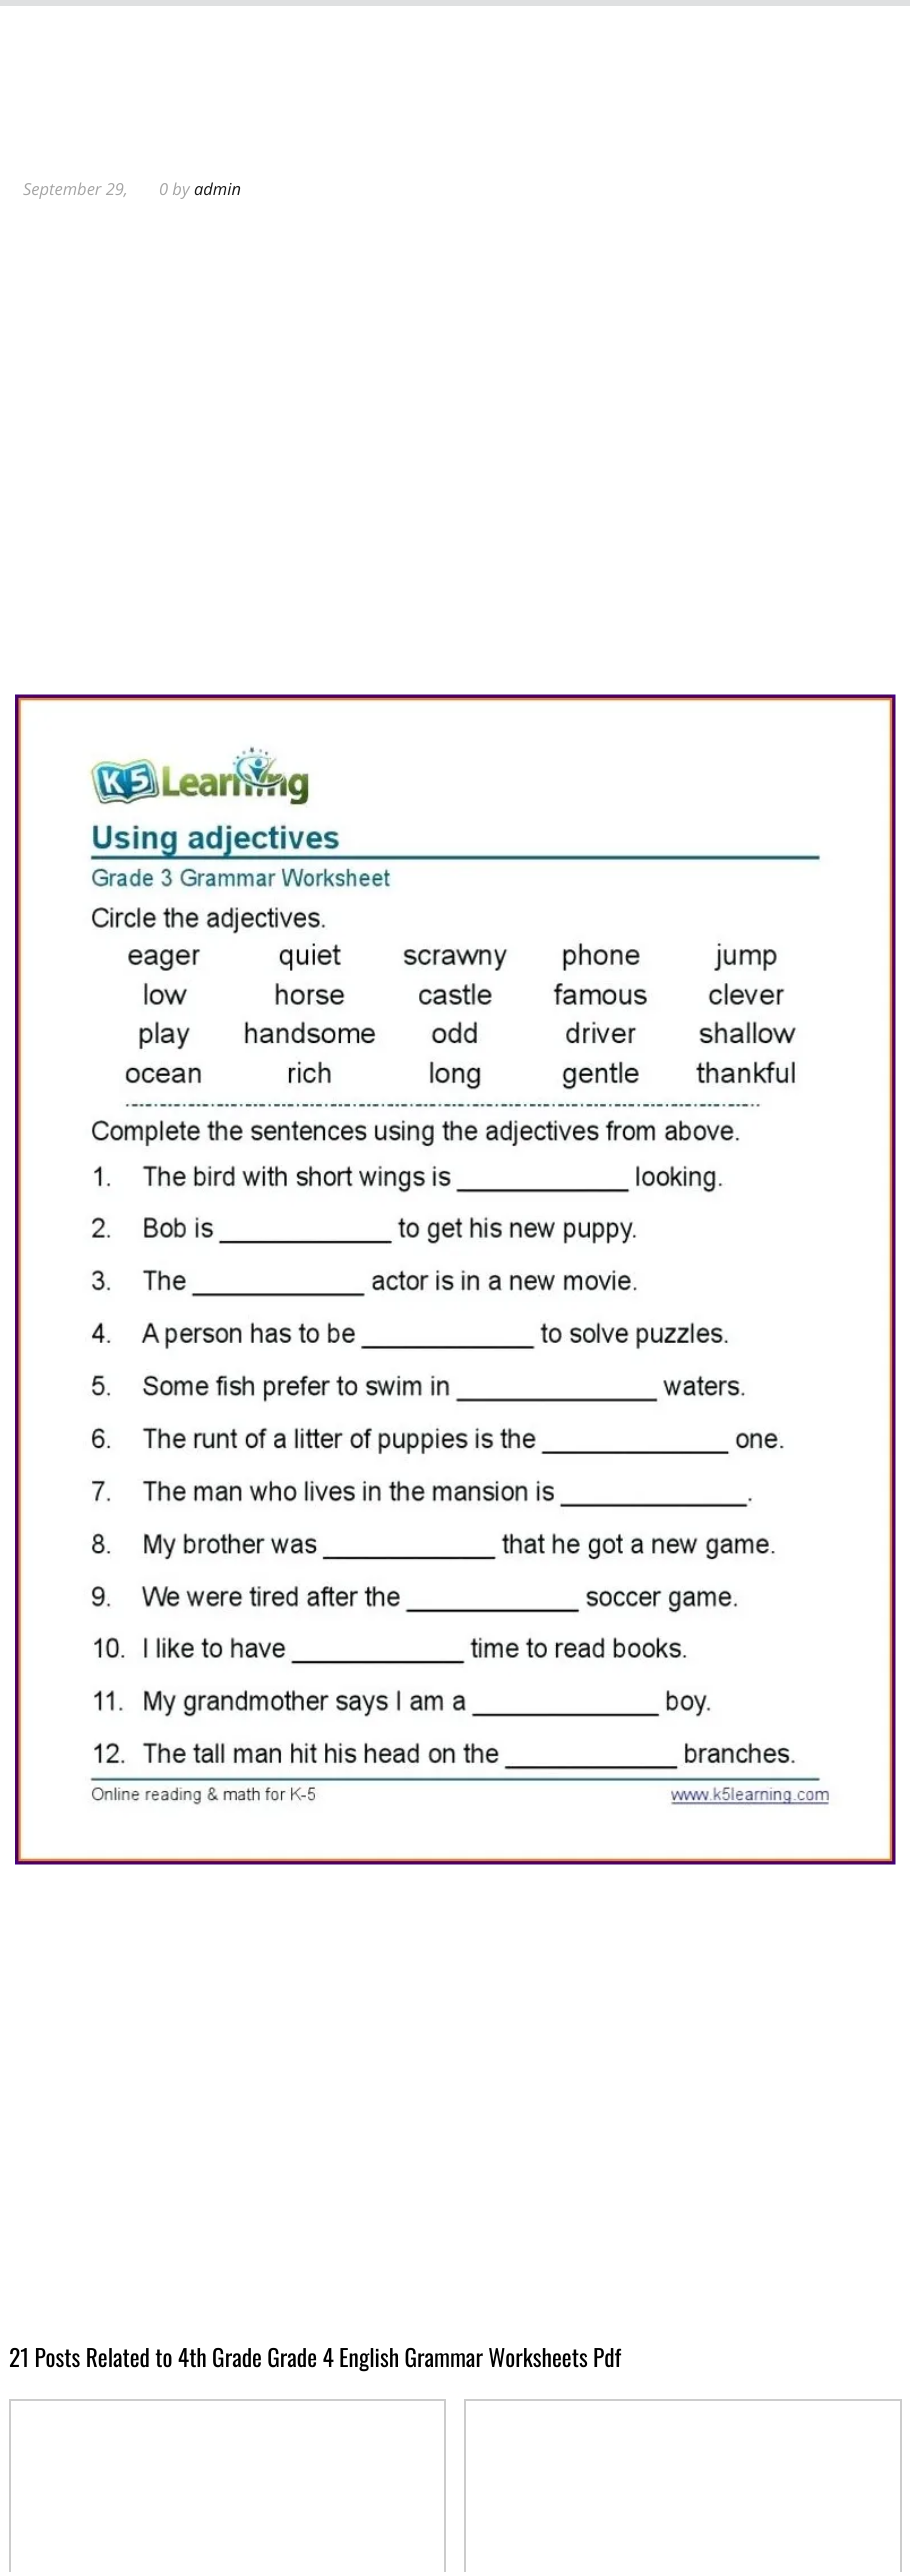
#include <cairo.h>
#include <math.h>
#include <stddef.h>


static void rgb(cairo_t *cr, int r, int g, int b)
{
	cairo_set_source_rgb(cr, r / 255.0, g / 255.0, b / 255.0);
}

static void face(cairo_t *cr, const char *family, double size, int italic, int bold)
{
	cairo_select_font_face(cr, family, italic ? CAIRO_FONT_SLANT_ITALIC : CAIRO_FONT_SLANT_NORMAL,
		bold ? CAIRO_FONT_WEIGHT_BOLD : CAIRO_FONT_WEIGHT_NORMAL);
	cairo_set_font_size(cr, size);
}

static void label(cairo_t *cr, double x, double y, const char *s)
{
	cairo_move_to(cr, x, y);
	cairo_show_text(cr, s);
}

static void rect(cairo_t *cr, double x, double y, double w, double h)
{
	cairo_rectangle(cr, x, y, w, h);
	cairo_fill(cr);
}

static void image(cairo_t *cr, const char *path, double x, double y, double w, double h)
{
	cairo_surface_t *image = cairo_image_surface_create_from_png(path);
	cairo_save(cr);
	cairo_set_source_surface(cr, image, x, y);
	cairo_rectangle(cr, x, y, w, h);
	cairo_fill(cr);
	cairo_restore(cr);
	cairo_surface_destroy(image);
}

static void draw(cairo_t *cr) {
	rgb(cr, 255, 255, 255);
	cairo_paint(cr);
	rgb(cr, 223, 224, 225);
	rect(cr, 0, 0, 910, 6);
	image(cr, "image0.png", 132, 183, 25, 13);
	face(cr, "Open Sans", 16.5, 1, 0);
	rgb(cr, 165, 165, 165);
	label(cr, 23, 195, "September 29,");
	label(cr, 159, 195, "0 by");
	rgb(cr, 23, 23, 23);
	label(cr, 194, 195, "admin");
	image(cr, "image1.png", 15, 694, 881, 1171);
	face(cr, "Oswald", 23.4, 0, 0);
	rgb(cr, 0, 0, 0);
	label(cr, 9, 2367, "21 Posts Related to 4th Grade Grade 4 English Grammar Worksheets Pdf");
	cairo_rectangle(cr, 10, 2400, 435, 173);
	rgb(cr, 204, 204, 204);
	cairo_stroke(cr);
	cairo_rectangle(cr, 465, 2400, 436, 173);
	cairo_stroke(cr);
}

int main(void) {
	cairo_surface_t *surface = cairo_image_surface_create(CAIRO_FORMAT_RGB24, 910, 2572);
	cairo_t *cr = cairo_create(surface);
	cairo_font_options_t *options = cairo_font_options_create();
	cairo_font_options_set_hint_metrics(options, CAIRO_HINT_METRICS_OFF);
	cairo_font_options_set_hint_style(options, CAIRO_HINT_STYLE_NONE);
	cairo_set_font_options(cr, options);
	cairo_set_miter_limit(cr, 4);
	draw(cr);
	cairo_surface_write_to_png(surface, "render.png");
	cairo_font_options_destroy(options);
	cairo_destroy(cr);
	cairo_surface_destroy(surface);
	return 0;
}
